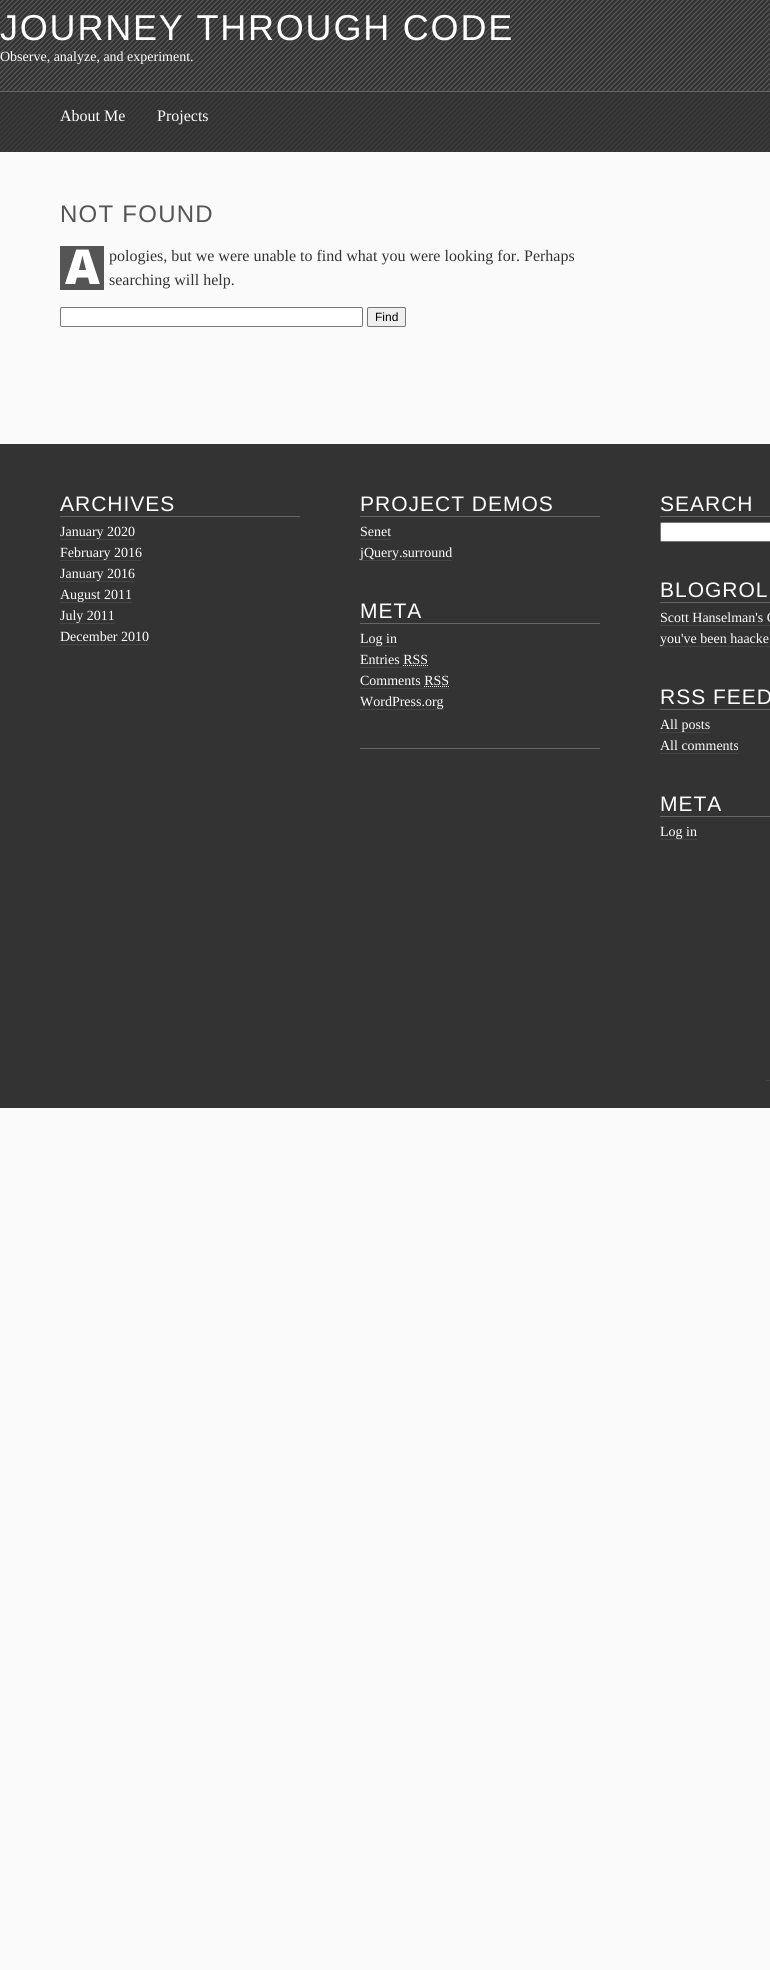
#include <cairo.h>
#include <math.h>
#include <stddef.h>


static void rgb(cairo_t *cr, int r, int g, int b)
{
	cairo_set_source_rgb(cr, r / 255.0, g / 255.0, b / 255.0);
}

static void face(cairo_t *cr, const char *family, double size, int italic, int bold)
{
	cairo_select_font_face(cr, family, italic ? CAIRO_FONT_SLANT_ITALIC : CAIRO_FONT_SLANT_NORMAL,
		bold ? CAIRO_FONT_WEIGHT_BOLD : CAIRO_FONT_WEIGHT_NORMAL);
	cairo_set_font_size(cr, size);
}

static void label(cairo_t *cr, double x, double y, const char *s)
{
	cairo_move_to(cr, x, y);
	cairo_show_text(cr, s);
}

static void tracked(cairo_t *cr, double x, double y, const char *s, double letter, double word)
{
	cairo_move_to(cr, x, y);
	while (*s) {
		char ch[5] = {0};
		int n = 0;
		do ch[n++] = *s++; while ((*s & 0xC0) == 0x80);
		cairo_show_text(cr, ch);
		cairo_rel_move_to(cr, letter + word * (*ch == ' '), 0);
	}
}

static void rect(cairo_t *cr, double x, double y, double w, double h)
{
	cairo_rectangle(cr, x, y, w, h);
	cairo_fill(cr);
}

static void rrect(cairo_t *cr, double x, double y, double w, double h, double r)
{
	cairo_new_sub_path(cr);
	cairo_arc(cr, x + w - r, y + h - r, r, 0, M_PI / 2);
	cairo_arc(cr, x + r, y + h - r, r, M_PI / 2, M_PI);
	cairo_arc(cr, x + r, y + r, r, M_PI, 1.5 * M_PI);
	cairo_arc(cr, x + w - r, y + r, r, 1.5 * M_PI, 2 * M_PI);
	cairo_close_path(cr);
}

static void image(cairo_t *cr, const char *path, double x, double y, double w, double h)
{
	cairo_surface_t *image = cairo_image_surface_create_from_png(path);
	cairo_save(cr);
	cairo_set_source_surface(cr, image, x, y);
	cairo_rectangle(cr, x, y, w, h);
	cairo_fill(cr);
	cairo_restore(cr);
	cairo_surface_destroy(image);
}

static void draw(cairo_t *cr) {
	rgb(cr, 250, 250, 250);
	cairo_paint(cr);
	rgb(cr, 51, 51, 51);
	rect(cr, 0, 0, 770, 152);
	image(cr, "image0.png", 0, 0, 770, 152);
	face(cr, "Liberation Sans", 36, 0, 0);
	rgb(cr, 255, 255, 255);
	tracked(cr, 0, 40, "JOURNEY THROUGH CODE", 1.8, 0);
	face(cr, "Liberation Serif", 14, 0, 0);
	label(cr, 0, 61, "Observe, analyze, and experiment.");
	cairo_set_source_rgba(cr, 0.196, 0.196, 0.196, 0.7);
	rect(cr, 0, 92, 770, 60);
	rgb(cr, 102, 102, 102);
	rect(cr, 0, 91, 770, 1);
	face(cr, "Liberation Serif", 16, 0, 0);
	rgb(cr, 255, 255, 255);
	label(cr, 60, 121, "About Me");
	label(cr, 157, 121, "Projects");
	face(cr, "Liberation Sans", 24, 0, 0);
	rgb(cr, 85, 85, 85);
	tracked(cr, 60, 222, "NOT FOUND", 1.25, 0);
	rect(cr, 60, 246, 44, 44);
	face(cr, "Noto Sans Black", 48, 0, 0);
	rgb(cr, 255, 255, 255);
	label(cr, 65, 284, "A");
	face(cr, "Liberation Serif", 16, 0, 0);
	rgb(cr, 51, 51, 51);
	label(cr, 109, 261, "pologies, but we were unable to find what you were looking for. Perhaps");
	label(cr, 109, 285, "searching will help.");
	rgb(cr, 255, 255, 255);
	rrect(cr, 60.5, 307.5, 302, 19, 1.5);
	cairo_fill_preserve(cr);
	rgb(cr, 118, 118, 118);
	cairo_set_line_width(cr, 1);
	cairo_stroke(cr);
	rgb(cr, 239, 239, 239);
	rrect(cr, 367.5, 307.5, 38, 19, 1.5);
	cairo_fill_preserve(cr);
	rgb(cr, 118, 118, 118);
	cairo_stroke(cr);
	face(cr, "Liberation Sans", 12, 0, 0);
	rgb(cr, 0, 0, 0);
	label(cr, 375, 321, "Find");
	rgb(cr, 51, 51, 51);
	rect(cr, 0, 444, 770, 664);
	rgb(cr, 102, 102, 102);
	rect(cr, 60, 516, 240, 1);
	face(cr, "Liberation Sans", 21, 0, 0);
	rgb(cr, 255, 255, 255);
	tracked(cr, 60, 511, "ARCHIVES", 1, 0);
	face(cr, "Liberation Serif", 14, 0, 0);
	label(cr, 60, 536, "January 2020");
	rgb(cr, 68, 68, 68);
	rect(cr, 60, 539, 75, 1);
	rgb(cr, 255, 255, 255);
	label(cr, 60, 557, "February 2016");
	rgb(cr, 68, 68, 68);
	rect(cr, 60, 560, 82, 1);
	rgb(cr, 255, 255, 255);
	label(cr, 60, 578, "January 2016");
	rgb(cr, 68, 68, 68);
	rect(cr, 60, 581, 75, 1);
	rgb(cr, 255, 255, 255);
	label(cr, 60, 599, "August 2011");
	rgb(cr, 68, 68, 68);
	rect(cr, 60, 602, 72, 1);
	rgb(cr, 255, 255, 255);
	label(cr, 60, 620, "July 2011");
	rgb(cr, 68, 68, 68);
	rect(cr, 60, 623, 55, 1);
	rgb(cr, 255, 255, 255);
	label(cr, 60, 641, "December 2010");
	rgb(cr, 68, 68, 68);
	rect(cr, 60, 644, 89, 1);
	rgb(cr, 102, 102, 102);
	rect(cr, 360, 516, 240, 1);
	face(cr, "Liberation Sans", 21, 0, 0);
	rgb(cr, 255, 255, 255);
	tracked(cr, 360, 511, "PROJECT DEMOS", 1, 0);
	face(cr, "Liberation Serif", 14, 0, 0);
	label(cr, 360, 536, "Senet");
	rgb(cr, 68, 68, 68);
	rect(cr, 360, 539, 31, 1);
	rgb(cr, 255, 255, 255);
	label(cr, 360, 557, "jQuery.surround");
	rgb(cr, 68, 68, 68);
	rect(cr, 360, 560, 92, 1);
	rgb(cr, 102, 102, 102);
	rect(cr, 360, 623, 240, 1);
	face(cr, "Liberation Sans", 21, 0, 0);
	rgb(cr, 255, 255, 255);
	tracked(cr, 360, 618, "META", 1, 0);
	face(cr, "Liberation Serif", 14, 0, 0);
	label(cr, 360, 643, "Log in");
	rgb(cr, 68, 68, 68);
	rect(cr, 360, 646, 37, 1);
	rgb(cr, 255, 255, 255);
	label(cr, 360, 664, "Entries RSS");
	rgb(cr, 68, 68, 68);
	rect(cr, 360, 667, 68, 1);
	cairo_new_path(cr);
	cairo_move_to(cr, 403, 665.5);
	cairo_line_to(cr, 428, 665.5);
	rgb(cr, 255, 255, 255);
	cairo_set_dash(cr, (double[]){1, 1}, 2, 0);
	cairo_stroke(cr);
	label(cr, 360, 685, "Comments RSS");
	rgb(cr, 68, 68, 68);
	rect(cr, 360, 688, 89, 1);
	cairo_new_path(cr);
	cairo_move_to(cr, 424, 686.5);
	cairo_line_to(cr, 449, 686.5);
	rgb(cr, 255, 255, 255);
	cairo_stroke(cr);
	label(cr, 360, 706, "WordPress.org");
	rgb(cr, 68, 68, 68);
	rect(cr, 360, 709, 84, 1);
	rgb(cr, 102, 102, 102);
	rect(cr, 360, 748, 240, 1);
	rect(cr, 660, 516, 110, 1);
	face(cr, "Liberation Sans", 21, 0, 0);
	rgb(cr, 255, 255, 255);
	tracked(cr, 660, 511, "SEARCH", 1, 0);
	rrect(cr, 660.5, 522.5, 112, 19, 1.5);
	cairo_fill_preserve(cr);
	rgb(cr, 118, 118, 118);
	cairo_set_dash(cr, NULL, 0, 0);
	cairo_stroke(cr);
	rgb(cr, 102, 102, 102);
	rect(cr, 660, 602, 110, 1);
	rgb(cr, 255, 255, 255);
	tracked(cr, 660, 597, "BLOGROL", 1, 0);
	face(cr, "Liberation Serif", 14, 0, 0);
	label(cr, 660, 622, "Scott Hanselman's C");
	rgb(cr, 68, 68, 68);
	rect(cr, 660, 625, 110, 1);
	rgb(cr, 255, 255, 255);
	label(cr, 660, 643, "you've been haacke");
	rgb(cr, 68, 68, 68);
	rect(cr, 660, 646, 110, 1);
	rgb(cr, 102, 102, 102);
	rect(cr, 660, 709, 110, 1);
	face(cr, "Liberation Sans", 21, 0, 0);
	rgb(cr, 255, 255, 255);
	tracked(cr, 660, 704, "RSS FEED", 1, 0);
	face(cr, "Liberation Serif", 14, 0, 0);
	label(cr, 660, 729, "All posts");
	rgb(cr, 68, 68, 68);
	rect(cr, 660, 732, 50, 1);
	rgb(cr, 255, 255, 255);
	label(cr, 660, 750, "All comments");
	rgb(cr, 68, 68, 68);
	rect(cr, 660, 753, 79, 1);
	rgb(cr, 102, 102, 102);
	rect(cr, 660, 816, 110, 1);
	face(cr, "Liberation Sans", 21, 0, 0);
	rgb(cr, 255, 255, 255);
	tracked(cr, 660, 811, "META", 1, 0);
	face(cr, "Liberation Serif", 14, 0, 0);
	label(cr, 660, 836, "Log in");
	rgb(cr, 68, 68, 68);
	rect(cr, 660, 839, 37, 1);
	rect(cr, 766, 1080, 4, 1);
}

int main(void) {
	cairo_surface_t *surface = cairo_image_surface_create(CAIRO_FORMAT_RGB24, 770, 1970);
	cairo_t *cr = cairo_create(surface);
	cairo_font_options_t *options = cairo_font_options_create();
	cairo_font_options_set_hint_metrics(options, CAIRO_HINT_METRICS_OFF);
	cairo_font_options_set_hint_style(options, CAIRO_HINT_STYLE_NONE);
	cairo_set_font_options(cr, options);
	cairo_set_miter_limit(cr, 4);
	draw(cr);
	cairo_surface_write_to_png(surface, "render.png");
	cairo_font_options_destroy(options);
	cairo_destroy(cr);
	cairo_surface_destroy(surface);
	return 0;
}
